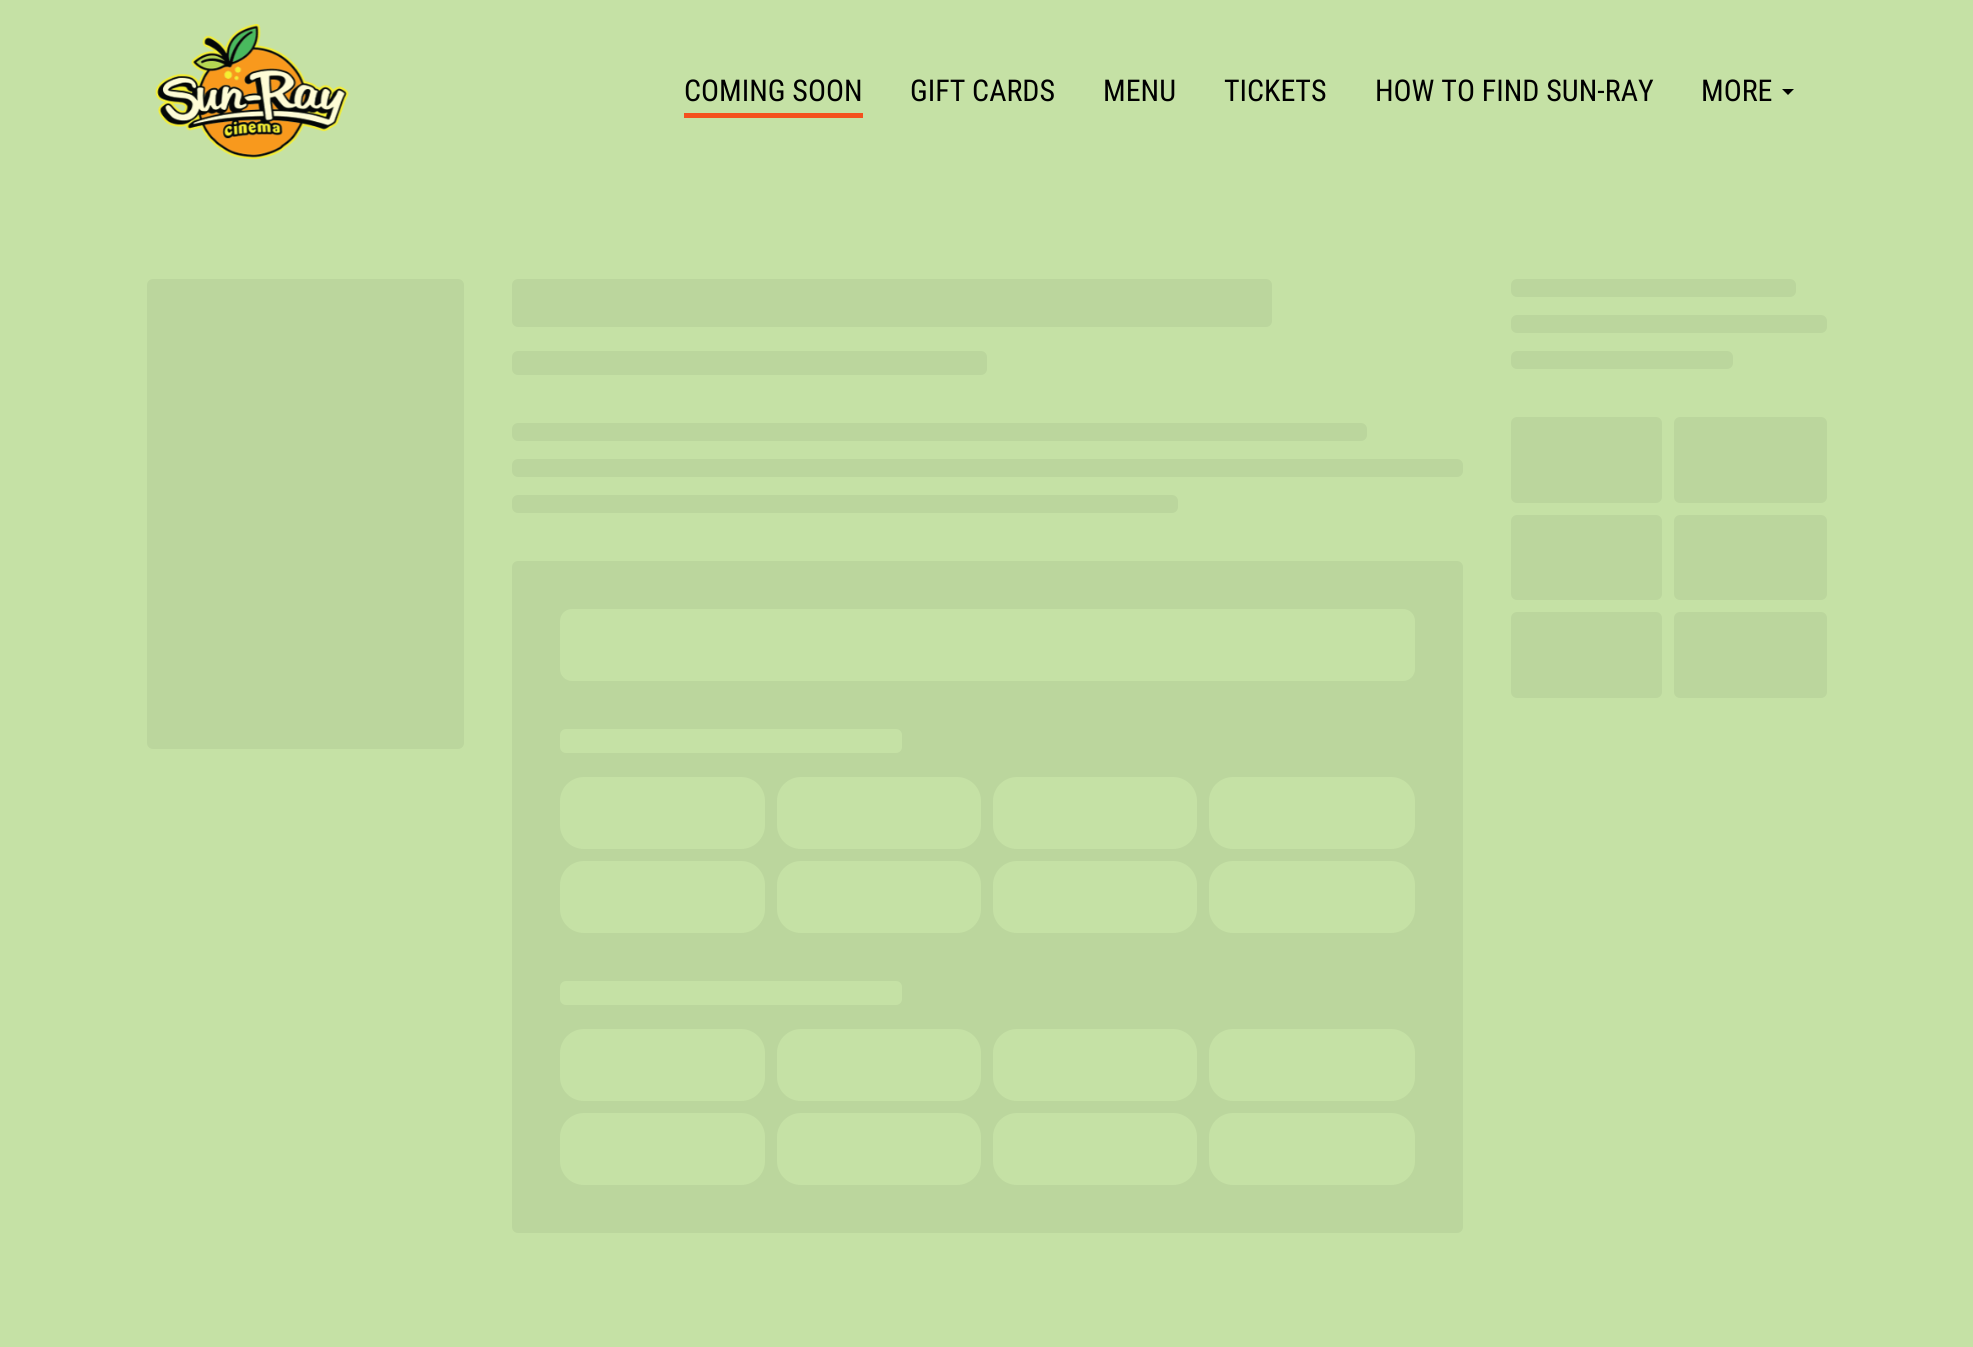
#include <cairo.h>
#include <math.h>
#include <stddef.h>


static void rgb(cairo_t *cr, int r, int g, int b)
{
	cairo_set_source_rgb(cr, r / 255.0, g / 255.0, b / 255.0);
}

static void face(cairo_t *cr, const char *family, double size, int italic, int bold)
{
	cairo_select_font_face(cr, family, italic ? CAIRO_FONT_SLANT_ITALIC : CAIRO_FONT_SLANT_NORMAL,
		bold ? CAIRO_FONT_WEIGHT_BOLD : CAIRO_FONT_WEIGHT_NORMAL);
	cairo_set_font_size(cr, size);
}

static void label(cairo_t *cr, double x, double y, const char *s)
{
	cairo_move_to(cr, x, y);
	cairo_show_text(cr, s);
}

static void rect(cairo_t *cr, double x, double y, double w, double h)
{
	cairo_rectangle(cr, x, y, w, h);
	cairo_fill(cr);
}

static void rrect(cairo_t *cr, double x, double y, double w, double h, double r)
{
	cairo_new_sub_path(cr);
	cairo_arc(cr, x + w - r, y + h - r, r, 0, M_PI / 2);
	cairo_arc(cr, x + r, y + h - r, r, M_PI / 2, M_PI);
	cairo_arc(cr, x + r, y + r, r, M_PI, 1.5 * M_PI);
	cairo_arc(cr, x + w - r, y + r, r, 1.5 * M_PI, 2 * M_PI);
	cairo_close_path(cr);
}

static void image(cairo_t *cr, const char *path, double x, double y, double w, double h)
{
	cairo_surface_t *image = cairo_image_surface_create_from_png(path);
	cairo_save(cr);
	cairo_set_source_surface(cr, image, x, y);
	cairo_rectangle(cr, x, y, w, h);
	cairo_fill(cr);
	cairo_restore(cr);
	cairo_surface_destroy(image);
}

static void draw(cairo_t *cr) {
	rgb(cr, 197, 225, 165);
	cairo_paint(cr);
	image(cr, "image0.png", 155, 24, 194, 135);
	face(cr, "Roboto Condensed", 30, 0, 0);
	rgb(cr, 0, 0, 0);
	label(cr, 684, 101, "COMING SOON");
	rgb(cr, 244, 81, 30);
	rect(cr, 684, 113, 179, 5);
	rgb(cr, 0, 0, 0);
	label(cr, 910, 101, "GIFT CARDS");
	label(cr, 1103, 101, "MENU");
	label(cr, 1224, 101, "TICKETS");
	label(cr, 1375, 101, "HOW TO FIND SUN-RAY");
	label(cr, 1701, 101, "MORE");
	cairo_new_path(cr);
	cairo_move_to(cr, 1782, 89);
	cairo_line_to(cr, 1788, 95);
	cairo_line_to(cr, 1794, 89);
	cairo_close_path(cr);
	cairo_fill(cr);
	rgb(cr, 187, 214, 157);
	rrect(cr, 147, 279, 317, 470, 6);
	cairo_fill(cr);
	rrect(cr, 512, 279, 760, 48, 6);
	cairo_fill(cr);
	rrect(cr, 512, 351, 475, 24, 6);
	cairo_fill(cr);
	rrect(cr, 1511, 279, 285, 18, 6);
	cairo_fill(cr);
	rrect(cr, 1511, 315, 316, 18, 6);
	cairo_fill(cr);
	rrect(cr, 1511, 351, 222, 18, 6);
	cairo_fill(cr);
	rrect(cr, 1511, 417, 151, 86, 6);
	cairo_fill(cr);
	rrect(cr, 1674, 417, 153, 86, 6);
	cairo_fill(cr);
	rrect(cr, 1511, 515, 151, 85, 6);
	cairo_fill(cr);
	rrect(cr, 1674, 515, 153, 85, 6);
	cairo_fill(cr);
	rrect(cr, 1511, 612, 151, 86, 6);
	cairo_fill(cr);
	rrect(cr, 1674, 612, 153, 86, 6);
	cairo_fill(cr);
	rrect(cr, 512, 423, 855, 18, 6);
	cairo_fill(cr);
	rrect(cr, 512, 459, 951, 18, 6);
	cairo_fill(cr);
	rrect(cr, 512, 495, 666, 18, 6);
	cairo_fill(cr);
	rrect(cr, 512, 561, 951, 672, 6);
	cairo_fill(cr);
	rgb(cr, 197, 225, 165);
	rrect(cr, 560, 609, 855, 72, 12);
	cairo_fill(cr);
	rrect(cr, 560, 729, 342, 24, 6);
	cairo_fill(cr);
	rrect(cr, 560, 777, 205, 72, 24);
	cairo_fill(cr);
	rrect(cr, 777, 777, 204, 72, 24);
	cairo_fill(cr);
	rrect(cr, 993, 777, 204, 72, 24);
	cairo_fill(cr);
	rrect(cr, 1209, 777, 206, 72, 24);
	cairo_fill(cr);
	rrect(cr, 560, 861, 205, 72, 24);
	cairo_fill(cr);
	rrect(cr, 777, 861, 204, 72, 24);
	cairo_fill(cr);
	rrect(cr, 993, 861, 204, 72, 24);
	cairo_fill(cr);
	rrect(cr, 1209, 861, 206, 72, 24);
	cairo_fill(cr);
	rrect(cr, 560, 981, 342, 24, 6);
	cairo_fill(cr);
	rrect(cr, 560, 1029, 205, 72, 24);
	cairo_fill(cr);
	rrect(cr, 777, 1029, 204, 72, 24);
	cairo_fill(cr);
	rrect(cr, 993, 1029, 204, 72, 24);
	cairo_fill(cr);
	rrect(cr, 1209, 1029, 206, 72, 24);
	cairo_fill(cr);
	rrect(cr, 560, 1113, 205, 72, 24);
	cairo_fill(cr);
	rrect(cr, 777, 1113, 204, 72, 24);
	cairo_fill(cr);
	rrect(cr, 993, 1113, 204, 72, 24);
	cairo_fill(cr);
	rrect(cr, 1209, 1113, 206, 72, 24);
	cairo_fill(cr);
}

int main(void) {
	cairo_surface_t *surface = cairo_image_surface_create(CAIRO_FORMAT_RGB24, 1973, 1347);
	cairo_t *cr = cairo_create(surface);
	cairo_font_options_t *options = cairo_font_options_create();
	cairo_font_options_set_hint_metrics(options, CAIRO_HINT_METRICS_OFF);
	cairo_font_options_set_hint_style(options, CAIRO_HINT_STYLE_NONE);
	cairo_set_font_options(cr, options);
	cairo_set_miter_limit(cr, 4);
	draw(cr);
	cairo_surface_write_to_png(surface, "render.png");
	cairo_font_options_destroy(options);
	cairo_destroy(cr);
	cairo_surface_destroy(surface);
	return 0;
}
